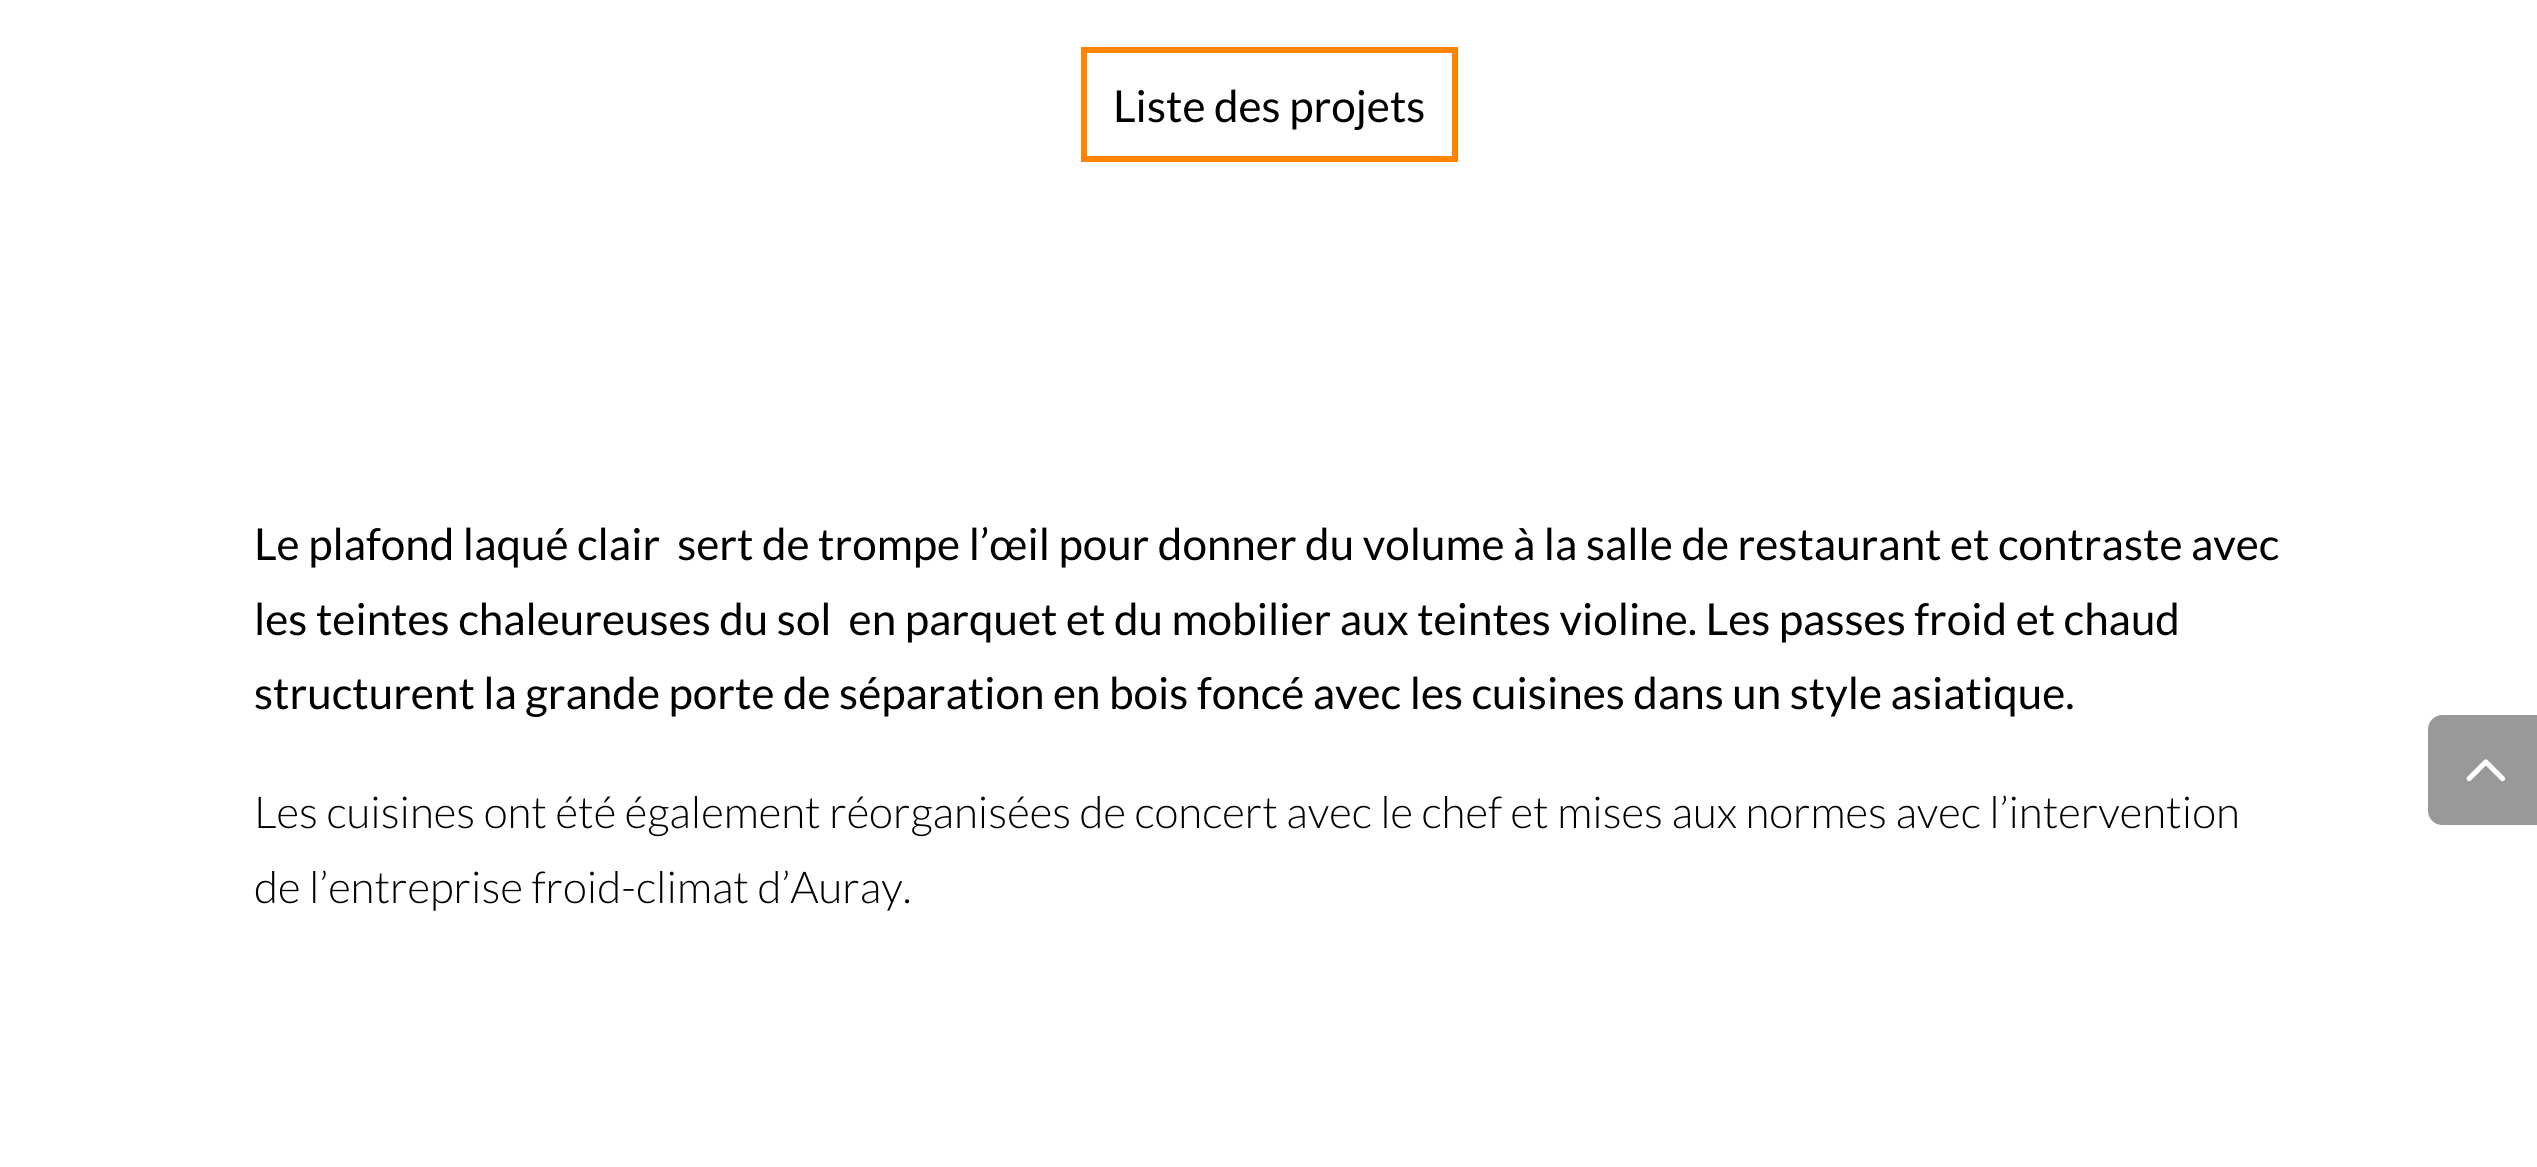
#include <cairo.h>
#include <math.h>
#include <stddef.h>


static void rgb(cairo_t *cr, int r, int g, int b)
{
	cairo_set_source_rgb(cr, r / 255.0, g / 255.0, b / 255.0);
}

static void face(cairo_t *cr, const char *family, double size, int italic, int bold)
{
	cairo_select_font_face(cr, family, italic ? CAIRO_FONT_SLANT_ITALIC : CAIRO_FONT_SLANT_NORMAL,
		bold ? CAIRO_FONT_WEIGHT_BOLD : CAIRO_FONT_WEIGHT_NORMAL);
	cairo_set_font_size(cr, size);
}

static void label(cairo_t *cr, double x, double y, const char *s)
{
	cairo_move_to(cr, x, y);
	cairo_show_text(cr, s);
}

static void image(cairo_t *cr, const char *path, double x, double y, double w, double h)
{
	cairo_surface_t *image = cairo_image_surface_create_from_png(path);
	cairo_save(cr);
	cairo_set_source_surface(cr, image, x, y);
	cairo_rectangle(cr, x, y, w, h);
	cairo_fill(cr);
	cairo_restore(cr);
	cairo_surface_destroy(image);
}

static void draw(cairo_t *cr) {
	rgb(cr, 255, 255, 255);
	cairo_paint(cr);
	cairo_rectangle(cr, 1084, 50, 371, 109);
	rgb(cr, 255, 133, 0);
	cairo_set_line_width(cr, 6);
	cairo_stroke(cr);
	face(cr, "Lato", 44, 0, 0);
	rgb(cr, 0, 0, 0);
	label(cr, 1113, 122, "Liste des projets");
	label(cr, 254, 560, "Le plafond laqué clair  sert de trompe l’œil pour donner du volume à la salle de restaurant et contraste avec");
	label(cr, 254, 635, "les teintes chaleureuses du sol  en parquet et du mobilier aux teintes violine. Les passes froid et chaud");
	label(cr, 254, 709, "structurent la grande porte de séparation en bois foncé avec les cuisines dans un style asiatique.");
	face(cr, "Lato Light", 44, 0, 0);
	label(cr, 254, 828, "Les cuisines ont été également réorganisées de concert avec le chef et mises aux normes avec l’intervention");
	label(cr, 254, 903, "de l’entreprise froid-climat d’Auray.");
	rgb(cr, 153, 153, 153);
	cairo_new_path(cr);
	cairo_move_to(cr, 2442, 715);
	cairo_line_to(cr, 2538, 715);
	cairo_line_to(cr, 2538, 825);
	cairo_line_to(cr, 2442, 825);
	cairo_curve_to(cr, 2434.5, 825, 2428, 818.5, 2428, 811);
	cairo_line_to(cr, 2428, 729);
	cairo_curve_to(cr, 2428, 721.5, 2434.5, 715, 2442, 715);
	cairo_close_path(cr);
	cairo_fill(cr);
	image(cr, "image0.png", 2466, 759, 40, 23);
}

int main(void) {
	cairo_surface_t *surface = cairo_image_surface_create(CAIRO_FORMAT_RGB24, 2537, 1167);
	cairo_t *cr = cairo_create(surface);
	cairo_font_options_t *options = cairo_font_options_create();
	cairo_font_options_set_hint_metrics(options, CAIRO_HINT_METRICS_OFF);
	cairo_font_options_set_hint_style(options, CAIRO_HINT_STYLE_NONE);
	cairo_set_font_options(cr, options);
	cairo_set_miter_limit(cr, 4);
	draw(cr);
	cairo_surface_write_to_png(surface, "render.png");
	cairo_font_options_destroy(options);
	cairo_destroy(cr);
	cairo_surface_destroy(surface);
	return 0;
}
